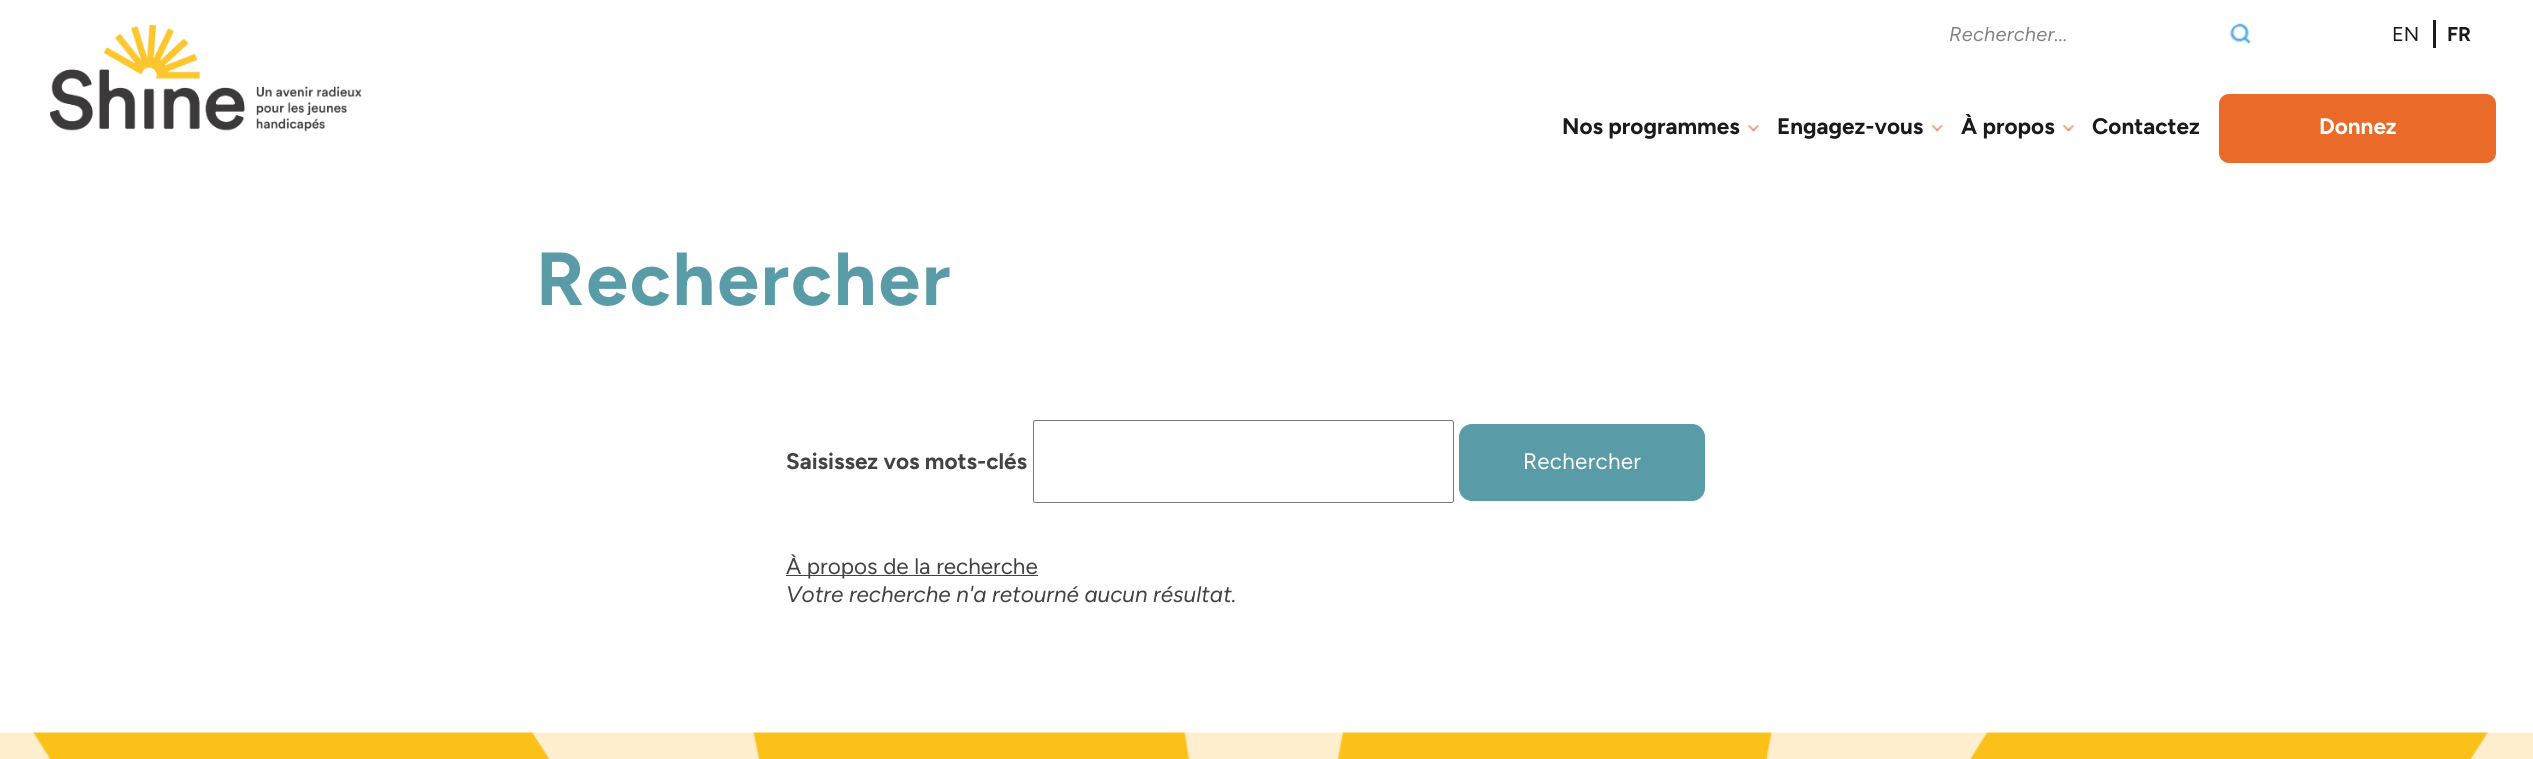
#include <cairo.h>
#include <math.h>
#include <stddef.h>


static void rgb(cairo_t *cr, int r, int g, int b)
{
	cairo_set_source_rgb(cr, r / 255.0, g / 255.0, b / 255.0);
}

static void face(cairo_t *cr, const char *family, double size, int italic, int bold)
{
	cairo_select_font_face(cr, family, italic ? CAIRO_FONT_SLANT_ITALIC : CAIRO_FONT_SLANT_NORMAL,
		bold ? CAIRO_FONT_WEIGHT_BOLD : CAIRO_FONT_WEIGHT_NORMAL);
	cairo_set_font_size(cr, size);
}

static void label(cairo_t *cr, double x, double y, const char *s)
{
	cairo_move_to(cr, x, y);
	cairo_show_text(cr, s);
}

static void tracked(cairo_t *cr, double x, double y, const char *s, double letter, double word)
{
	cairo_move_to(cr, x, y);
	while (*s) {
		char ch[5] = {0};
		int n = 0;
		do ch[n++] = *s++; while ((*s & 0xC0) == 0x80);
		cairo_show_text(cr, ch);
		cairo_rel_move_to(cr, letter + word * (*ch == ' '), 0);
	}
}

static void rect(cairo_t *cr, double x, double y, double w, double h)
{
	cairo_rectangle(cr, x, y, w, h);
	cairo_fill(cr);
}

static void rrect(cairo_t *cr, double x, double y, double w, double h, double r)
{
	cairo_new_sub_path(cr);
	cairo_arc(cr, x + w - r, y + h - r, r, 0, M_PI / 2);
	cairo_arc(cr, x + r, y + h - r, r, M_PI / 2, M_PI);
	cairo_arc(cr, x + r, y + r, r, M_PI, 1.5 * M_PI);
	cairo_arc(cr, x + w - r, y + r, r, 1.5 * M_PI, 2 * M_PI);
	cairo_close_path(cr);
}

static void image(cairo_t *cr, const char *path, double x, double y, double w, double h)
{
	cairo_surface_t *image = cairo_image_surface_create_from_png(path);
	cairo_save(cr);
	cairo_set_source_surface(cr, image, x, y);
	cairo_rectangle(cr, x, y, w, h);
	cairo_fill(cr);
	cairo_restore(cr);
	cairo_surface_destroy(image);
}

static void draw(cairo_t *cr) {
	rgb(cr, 255, 255, 255);
	cairo_paint(cr);
	image(cr, "image0.png", 50, 25, 312, 107);
	face(cr, "Figtree", 20, 1, 0);
	rgb(cr, 131, 131, 131);
	tracked(cr, 1949, 41, "Rechercher...", 0.25, 0);
	image(cr, "image1.png", 2229, 23, 22, 21);
	face(cr, "Figtree", 20, 0, 0);
	rgb(cr, 26, 26, 26);
	label(cr, 2392, 41, "EN");
	rect(cr, 2433, 20, 3, 28);
	face(cr, "Figtree", 20, 0, 1);
	label(cr, 2447, 41, "FR");
	face(cr, "Figtree", 22.5, 0, 1);
	label(cr, 1562, 134, "Nos programmes");
	image(cr, "image2.png", 1747, 125, 13, 7);
	label(cr, 1777, 134, "Engagez-vous");
	image(cr, "image3.png", 1931, 125, 13, 7);
	label(cr, 1961, 134, "À propos");
	image(cr, "image4.png", 2062, 125, 13, 7);
	label(cr, 2092, 134, "Contactez");
	rgb(cr, 233, 106, 41);
	rrect(cr, 2219, 94, 277, 69, 10);
	cairo_fill(cr);
	rgb(cr, 255, 255, 255);
	label(cr, 2319, 134, "Donnez");
	face(cr, "Figtree", 75, 0, 1);
	rgb(cr, 89, 156, 167);
	tracked(cr, 536, 305, "Rechercher", 1.9, 0);
	face(cr, "Figtree", 22.5, 0, 1);
	rgb(cr, 67, 67, 67);
	label(cr, 786, 469, "Saisissez vos mots-clés");
	rrect(cr, 1033.5, 420.5, 420, 82, 2);
	rgb(cr, 118, 118, 118);
	cairo_set_line_width(cr, 1);
	cairo_stroke(cr);
	rgb(cr, 89, 156, 167);
	rrect(cr, 1459.5, 424.5, 245, 76, 12.5);
	cairo_fill_preserve(cr);
	cairo_stroke(cr);
	face(cr, "Figtree", 22.5, 0, 0);
	rgb(cr, 255, 255, 255);
	tracked(cr, 1523, 469, "Rechercher", 0.25, 0);
	rgb(cr, 67, 67, 67);
	rect(cr, 786, 575, 252, 1);
	label(cr, 786, 574, "À propos de la recherche");
	face(cr, "Figtree", 22.5, 1, 0);
	label(cr, 786, 602, "Votre recherche n'a retourné aucun résultat.");
	image(cr, "image5.png", 0, 732, 2533, 27);
}

int main(void) {
	cairo_surface_t *surface = cairo_image_surface_create(CAIRO_FORMAT_RGB24, 2533, 759);
	cairo_t *cr = cairo_create(surface);
	cairo_font_options_t *options = cairo_font_options_create();
	cairo_font_options_set_hint_metrics(options, CAIRO_HINT_METRICS_OFF);
	cairo_font_options_set_hint_style(options, CAIRO_HINT_STYLE_NONE);
	cairo_set_font_options(cr, options);
	cairo_set_miter_limit(cr, 4);
	draw(cr);
	cairo_surface_write_to_png(surface, "render.png");
	cairo_font_options_destroy(options);
	cairo_destroy(cr);
	cairo_surface_destroy(surface);
	return 0;
}
